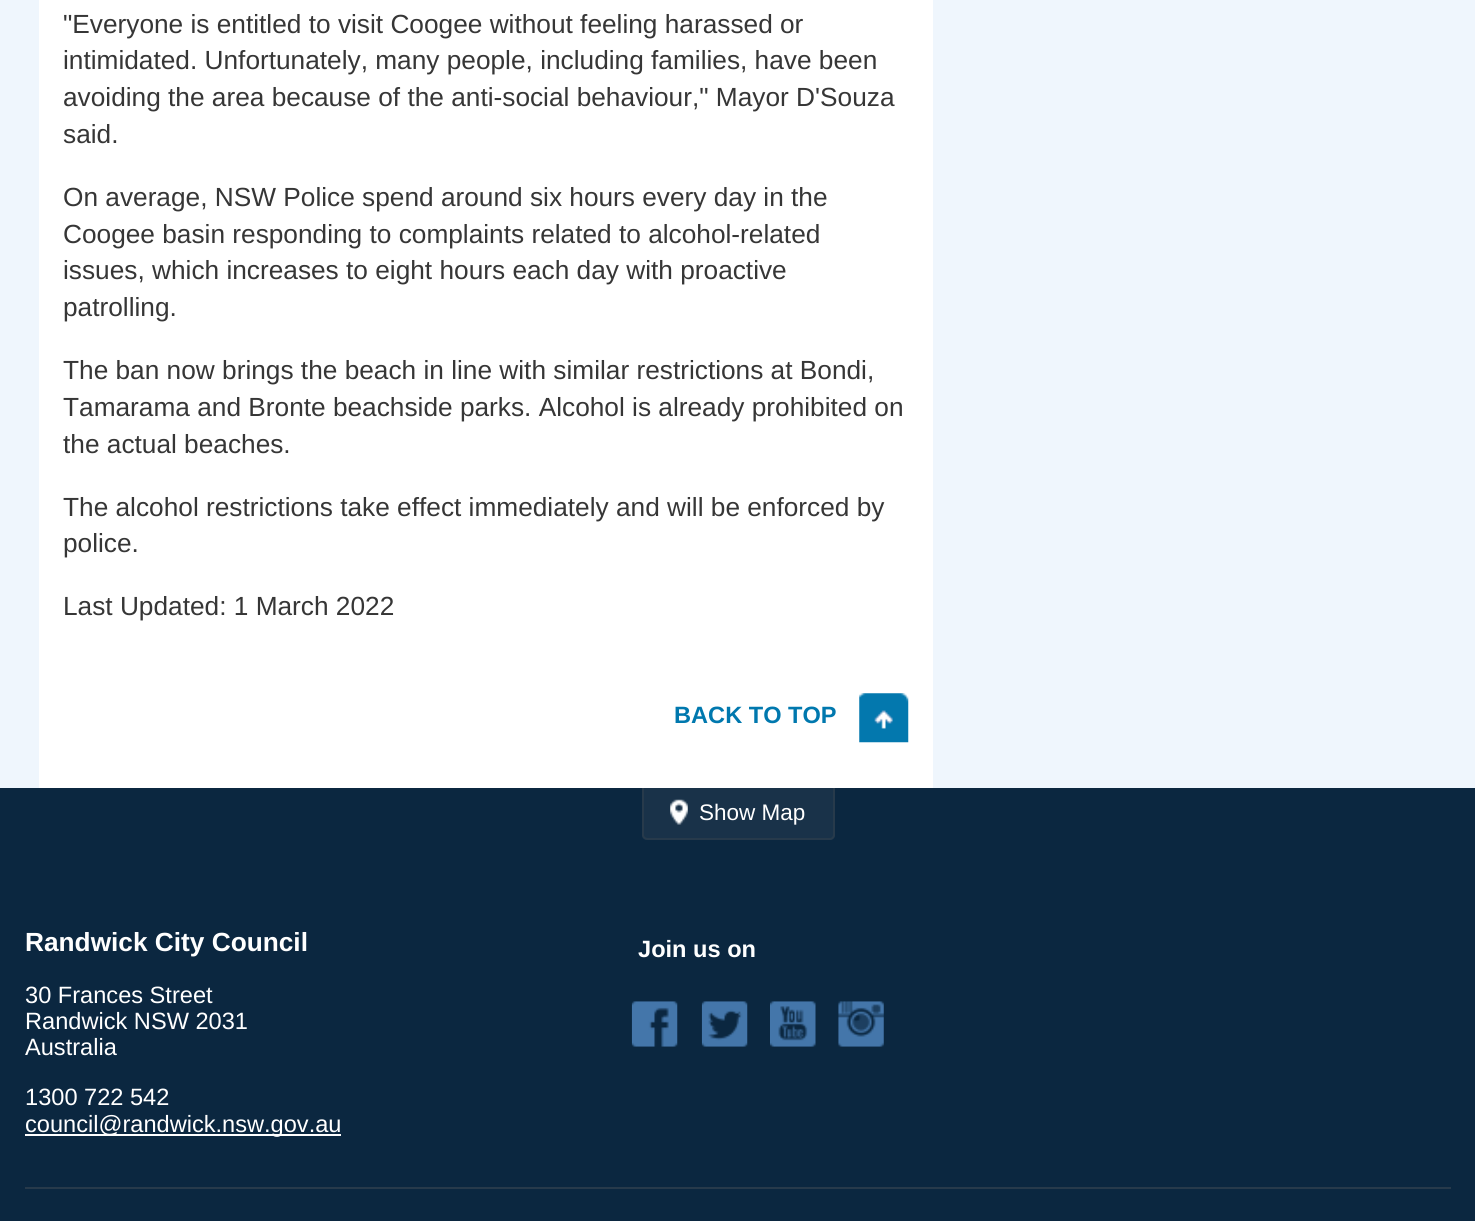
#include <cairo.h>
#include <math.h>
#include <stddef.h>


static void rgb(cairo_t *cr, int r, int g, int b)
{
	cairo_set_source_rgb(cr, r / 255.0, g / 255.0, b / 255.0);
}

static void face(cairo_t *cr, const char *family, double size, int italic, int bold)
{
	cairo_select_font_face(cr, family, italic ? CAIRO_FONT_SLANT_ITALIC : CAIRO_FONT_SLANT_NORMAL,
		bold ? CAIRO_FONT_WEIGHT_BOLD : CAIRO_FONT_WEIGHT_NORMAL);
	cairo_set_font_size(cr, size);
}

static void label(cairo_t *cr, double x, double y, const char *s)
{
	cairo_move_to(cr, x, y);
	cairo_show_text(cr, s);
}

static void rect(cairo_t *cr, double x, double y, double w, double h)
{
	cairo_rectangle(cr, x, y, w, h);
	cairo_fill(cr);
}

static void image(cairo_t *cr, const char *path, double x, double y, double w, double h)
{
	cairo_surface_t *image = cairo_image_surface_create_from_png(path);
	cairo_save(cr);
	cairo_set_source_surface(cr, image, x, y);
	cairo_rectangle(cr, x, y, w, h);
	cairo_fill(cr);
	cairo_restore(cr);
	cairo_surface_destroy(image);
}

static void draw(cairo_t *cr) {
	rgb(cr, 239, 246, 253);
	cairo_paint(cr);
	rgb(cr, 255, 255, 255);
	rect(cr, 39, 0, 894, 788);
	face(cr, "Liberation Sans", 26.25, 0, 0);
	rgb(cr, 54, 54, 54);
	label(cr, 63, 33, "\"Everyone is entitled to visit Coogee without feeling harassed or");
	label(cr, 63, 69, "intimidated. Unfortunately, many people, including families, have been");
	label(cr, 63, 106, "avoiding the area because of the anti-social behaviour,\" Mayor D'Souza");
	label(cr, 63, 143, "said.");
	label(cr, 63, 206, "On average, NSW Police spend around six hours every day in the");
	label(cr, 63, 243, "Coogee basin responding to complaints related to alcohol-related");
	label(cr, 63, 279, "issues, which increases to eight hours each day with proactive");
	label(cr, 63, 316, "patrolling.");
	label(cr, 63, 379, "The ban now brings the beach in line with similar restrictions at Bondi,");
	label(cr, 63, 416, "Tamarama and Bronte beachside parks. Alcohol is already prohibited on");
	label(cr, 63, 453, "the actual beaches.");
	label(cr, 63, 516, "The alcohol restrictions take effect immediately and will be enforced by");
	label(cr, 63, 552, "police.");
	label(cr, 63, 615, "Last Updated: 1 March 2022");
	face(cr, "Liberation Sans", 23.6, 0, 1);
	rgb(cr, 0, 120, 174);
	label(cr, 674, 723, "BACK TO TOP");
	image(cr, "image0.png", 859, 693, 50, 50);
	rgb(cr, 11, 39, 64);
	rect(cr, 0, 788, 1475, 433);
	rgb(cr, 25, 50, 73);
	cairo_new_path(cr);
	cairo_move_to(cr, 642, 788);
	cairo_line_to(cr, 835, 788);
	cairo_line_to(cr, 835, 835);
	cairo_curve_to(cr, 835, 838, 833, 840, 830, 840);
	cairo_line_to(cr, 647, 840);
	cairo_curve_to(cr, 644, 840, 642, 838, 642, 835);
	cairo_close_path(cr);
	cairo_fill(cr);
	rgb(cr, 39, 58, 75);
	cairo_set_fill_rule(cr, CAIRO_FILL_RULE_EVEN_ODD);
	cairo_new_path(cr);
	cairo_move_to(cr, 642, 788);
	cairo_line_to(cr, 835, 788);
	cairo_line_to(cr, 835, 835);
	cairo_curve_to(cr, 835, 838, 832, 840, 830, 840);
	cairo_line_to(cr, 648, 840);
	cairo_curve_to(cr, 645, 840, 642, 838, 642, 835);
	cairo_close_path(cr);
	cairo_move_to(cr, 644, 788);
	cairo_line_to(cr, 833, 788);
	cairo_line_to(cr, 833, 835);
	cairo_curve_to(cr, 833, 837, 831, 838, 830, 838);
	cairo_line_to(cr, 648, 838);
	cairo_curve_to(cr, 646, 838, 644, 837, 644, 835);
	cairo_close_path(cr);
	cairo_fill(cr);
	image(cr, "image1.png", 670, 799, 18, 26);
	face(cr, "Liberation Sans", 22.5, 0, 0);
	rgb(cr, 255, 255, 255);
	label(cr, 699, 820, "Show Map");
	face(cr, "Liberation Sans", 26.25, 0, 1);
	label(cr, 25, 951, "Randwick City Council");
	face(cr, "Liberation Sans", 23.6, 0, 0);
	label(cr, 25, 1003, "30 Frances Street");
	label(cr, 25, 1029, "Randwick NSW 2031");
	label(cr, 25, 1055, "Australia");
	label(cr, 25, 1105, "1300 722 542");
	rect(cr, 25, 1134, 316, 2);
	label(cr, 25, 1132, "council@randwick.nsw.gov.au");
	face(cr, "Liberation Sans", 23.6, 0, 1);
	label(cr, 638, 957, "Join us on");
	image(cr, "image2.png", 631, 1001, 47, 46);
	image(cr, "image3.png", 701, 1001, 47, 46);
	image(cr, "image4.png", 770, 1001, 46, 46);
	image(cr, "image5.png", 838, 1001, 46, 46);
	rgb(cr, 39, 58, 75);
	rect(cr, 25, 1187, 1426, 2);
}

int main(void) {
	cairo_surface_t *surface = cairo_image_surface_create(CAIRO_FORMAT_RGB24, 1475, 1221);
	cairo_t *cr = cairo_create(surface);
	cairo_font_options_t *options = cairo_font_options_create();
	cairo_font_options_set_hint_metrics(options, CAIRO_HINT_METRICS_OFF);
	cairo_font_options_set_hint_style(options, CAIRO_HINT_STYLE_NONE);
	cairo_set_font_options(cr, options);
	cairo_set_miter_limit(cr, 4);
	draw(cr);
	cairo_surface_write_to_png(surface, "render.png");
	cairo_font_options_destroy(options);
	cairo_destroy(cr);
	cairo_surface_destroy(surface);
	return 0;
}
